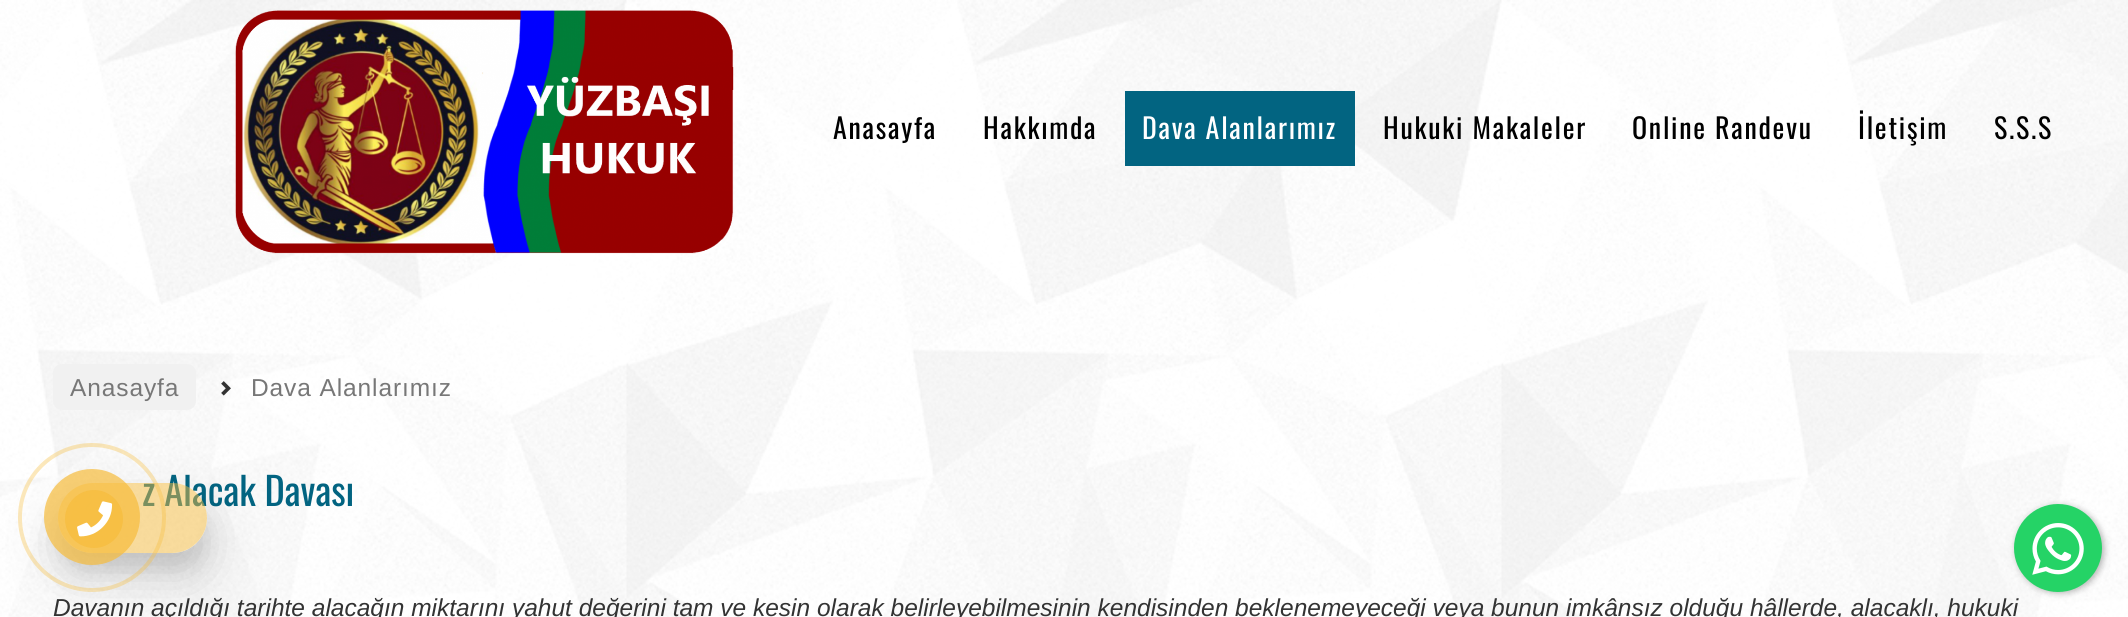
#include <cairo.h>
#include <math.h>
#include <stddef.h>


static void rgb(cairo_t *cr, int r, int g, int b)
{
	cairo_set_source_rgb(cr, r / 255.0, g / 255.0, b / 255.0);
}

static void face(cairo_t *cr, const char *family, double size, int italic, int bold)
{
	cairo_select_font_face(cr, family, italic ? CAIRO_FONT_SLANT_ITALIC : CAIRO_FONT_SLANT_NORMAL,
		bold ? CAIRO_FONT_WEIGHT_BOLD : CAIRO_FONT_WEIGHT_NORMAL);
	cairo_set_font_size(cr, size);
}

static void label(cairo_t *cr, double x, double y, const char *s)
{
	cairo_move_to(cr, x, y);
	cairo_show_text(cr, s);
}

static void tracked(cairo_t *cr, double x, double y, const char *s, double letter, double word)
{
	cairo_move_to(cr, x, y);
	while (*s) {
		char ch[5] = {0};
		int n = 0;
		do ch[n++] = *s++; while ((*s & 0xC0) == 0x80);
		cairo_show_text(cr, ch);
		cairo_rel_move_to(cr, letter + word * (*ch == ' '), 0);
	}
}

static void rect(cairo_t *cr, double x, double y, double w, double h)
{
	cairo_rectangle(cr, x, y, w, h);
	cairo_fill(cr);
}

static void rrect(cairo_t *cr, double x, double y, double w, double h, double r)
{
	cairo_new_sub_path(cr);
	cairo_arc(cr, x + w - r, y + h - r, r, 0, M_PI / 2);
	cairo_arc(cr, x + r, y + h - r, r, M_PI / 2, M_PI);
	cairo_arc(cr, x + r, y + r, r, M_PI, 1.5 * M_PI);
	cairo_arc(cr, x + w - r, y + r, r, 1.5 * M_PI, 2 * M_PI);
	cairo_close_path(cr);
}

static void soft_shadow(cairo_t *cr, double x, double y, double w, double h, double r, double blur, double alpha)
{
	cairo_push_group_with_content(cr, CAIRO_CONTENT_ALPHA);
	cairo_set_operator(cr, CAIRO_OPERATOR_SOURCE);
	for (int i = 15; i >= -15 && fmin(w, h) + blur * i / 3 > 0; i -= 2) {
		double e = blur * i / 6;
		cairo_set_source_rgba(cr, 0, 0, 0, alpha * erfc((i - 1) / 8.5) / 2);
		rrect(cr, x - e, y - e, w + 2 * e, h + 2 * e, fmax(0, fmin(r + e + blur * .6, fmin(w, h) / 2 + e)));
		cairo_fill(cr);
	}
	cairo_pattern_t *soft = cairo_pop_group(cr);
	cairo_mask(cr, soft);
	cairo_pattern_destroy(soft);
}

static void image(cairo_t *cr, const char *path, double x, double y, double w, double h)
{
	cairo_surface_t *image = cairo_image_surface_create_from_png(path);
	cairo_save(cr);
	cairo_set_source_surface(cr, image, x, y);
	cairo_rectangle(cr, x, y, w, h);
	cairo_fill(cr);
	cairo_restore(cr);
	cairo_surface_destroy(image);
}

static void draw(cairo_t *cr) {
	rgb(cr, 255, 255, 255);
	cairo_paint(cr);
	image(cr, "image0.png", 0, 0, 2128, 617);
	image(cr, "image1.png", 235, 10, 499, 244);
	face(cr, "Oswald", 28, 0, 0);
	rgb(cr, 0, 0, 0);
	tracked(cr, 833, 139, "Anasayfa", 1.75, 0);
	tracked(cr, 983, 139, "Hakkımda", 1.75, 0);
	rgb(cr, 2, 100, 129);
	rect(cr, 1125, 91, 230, 75);
	rgb(cr, 255, 255, 255);
	tracked(cr, 1142, 139, "Dava Alanlarımız", 1.75, 0);
	rgb(cr, 0, 0, 0);
	tracked(cr, 1383, 139, "Hukuki Makaleler", 1.75, 0);
	tracked(cr, 1632, 139, "Online Randevu", 1.75, 0);
	tracked(cr, 1858, 139, "İletişim", 1.75, 0);
	tracked(cr, 1994, 139, "S.S.S", 1.75, 0);
	rgb(cr, 241, 241, 241);
	rrect(cr, 53, 364, 143, 46, 9);
	cairo_fill(cr);
	face(cr, "Liberation Sans", 24.5, 0, 0);
	rgb(cr, 119, 119, 119);
	tracked(cr, 70, 396, "Anasayfa", 0.9, 0);
	image(cr, "image2.png", 221, 381, 10, 15);
	tracked(cr, 251, 396, "Dava Alanlarımız", 0.9, 0);
	face(cr, "Oswald", 38.5, 0, 0);
	rgb(cr, 2, 100, 129);
	label(cr, 142, 506, "z Alacak Davası");
	face(cr, "Liberation Sans", 24.5, 1, 0);
	rgb(cr, 51, 51, 51);
	label(cr, 53, 616, "Davanın açıldığı tarihte alacağın miktarını yahut değerini tam ve kesin olarak belirleyebilmesinin kendisinden beklenemeyeceği veya bunun imkânsız olduğu hâllerde, alacaklı, hukuki");
	cairo_save(cr);
	cairo_set_fill_rule(cr, CAIRO_FILL_RULE_EVEN_ODD);
	cairo_new_path(cr);
	cairo_move_to(cr, 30, 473);
	cairo_line_to(cr, 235, 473);
	cairo_line_to(cr, 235, 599);
	cairo_line_to(cr, 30, 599);
	cairo_close_path(cr);
	cairo_move_to(cr, 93, 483);
	cairo_line_to(cr, 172, 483);
	cairo_curve_to(cr, 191.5, 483, 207, 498.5, 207, 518);
	cairo_curve_to(cr, 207, 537.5, 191.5, 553, 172, 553);
	cairo_line_to(cr, 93, 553);
	cairo_curve_to(cr, 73.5, 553, 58, 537.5, 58, 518);
	cairo_curve_to(cr, 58, 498.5, 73.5, 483, 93, 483);
	cairo_close_path(cr);
	cairo_clip(cr);
	rgb(cr, 0, 0, 0);
	soft_shadow(cr, 58, 501, 149, 70, 35, 9, 0.07);
	cairo_restore(cr);
	cairo_save(cr);
	cairo_set_fill_rule(cr, CAIRO_FILL_RULE_EVEN_ODD);
	cairo_new_path(cr);
	cairo_move_to(cr, 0, 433);
	cairo_line_to(cr, 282, 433);
	cairo_line_to(cr, 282, 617);
	cairo_line_to(cr, 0, 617);
	cairo_close_path(cr);
	cairo_move_to(cr, 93, 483);
	cairo_line_to(cr, 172, 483);
	cairo_curve_to(cr, 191.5, 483, 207, 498.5, 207, 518);
	cairo_curve_to(cr, 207, 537.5, 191.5, 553, 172, 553);
	cairo_line_to(cr, 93, 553);
	cairo_curve_to(cr, 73.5, 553, 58, 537.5, 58, 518);
	cairo_curve_to(cr, 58, 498.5, 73.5, 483, 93, 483);
	cairo_close_path(cr);
	cairo_clip(cr);
	rgb(cr, 0, 0, 0);
	soft_shadow(cr, 58, 508, 149, 70, 35, 24.5, 0.17);
	cairo_restore(cr);
	cairo_set_source_rgba(cr, 0.969, 0.737, 0.235, 0.49);
	rrect(cr, 58, 483, 149, 70, 35);
	cairo_fill(cr);
	rrect(cr, 20, 445, 144, 145, 72);
	cairo_set_source_rgba(cr, 0.969, 0.737, 0.235, 0.35);
	cairo_set_line_width(cr, 4);
	cairo_stroke(cr);
	cairo_set_source_rgba(cr, 0.969, 0.737, 0.235, 0.7);
	cairo_arc(cr, 92, 517, 48, 0, 2 * M_PI);
	cairo_fill(cr);
	cairo_arc(cr, 94, 519, 29, 0, 2 * M_PI);
	cairo_fill(cr);
	image(cr, "image3.png", 77, 501, 36, 36);
	rgb(cr, 60, 60, 60);
	soft_shadow(cr, 2016, 506, 88, 87, 43.5, 3.5, 0.4);
	image(cr, "image4.png", 2014, 504, 88, 88);
}

int main(void) {
	cairo_surface_t *surface = cairo_image_surface_create(CAIRO_FORMAT_RGB24, 2128, 617);
	cairo_t *cr = cairo_create(surface);
	cairo_font_options_t *options = cairo_font_options_create();
	cairo_font_options_set_hint_metrics(options, CAIRO_HINT_METRICS_OFF);
	cairo_font_options_set_hint_style(options, CAIRO_HINT_STYLE_NONE);
	cairo_set_font_options(cr, options);
	cairo_set_miter_limit(cr, 4);
	draw(cr);
	cairo_surface_write_to_png(surface, "render.png");
	cairo_font_options_destroy(options);
	cairo_destroy(cr);
	cairo_surface_destroy(surface);
	return 0;
}
